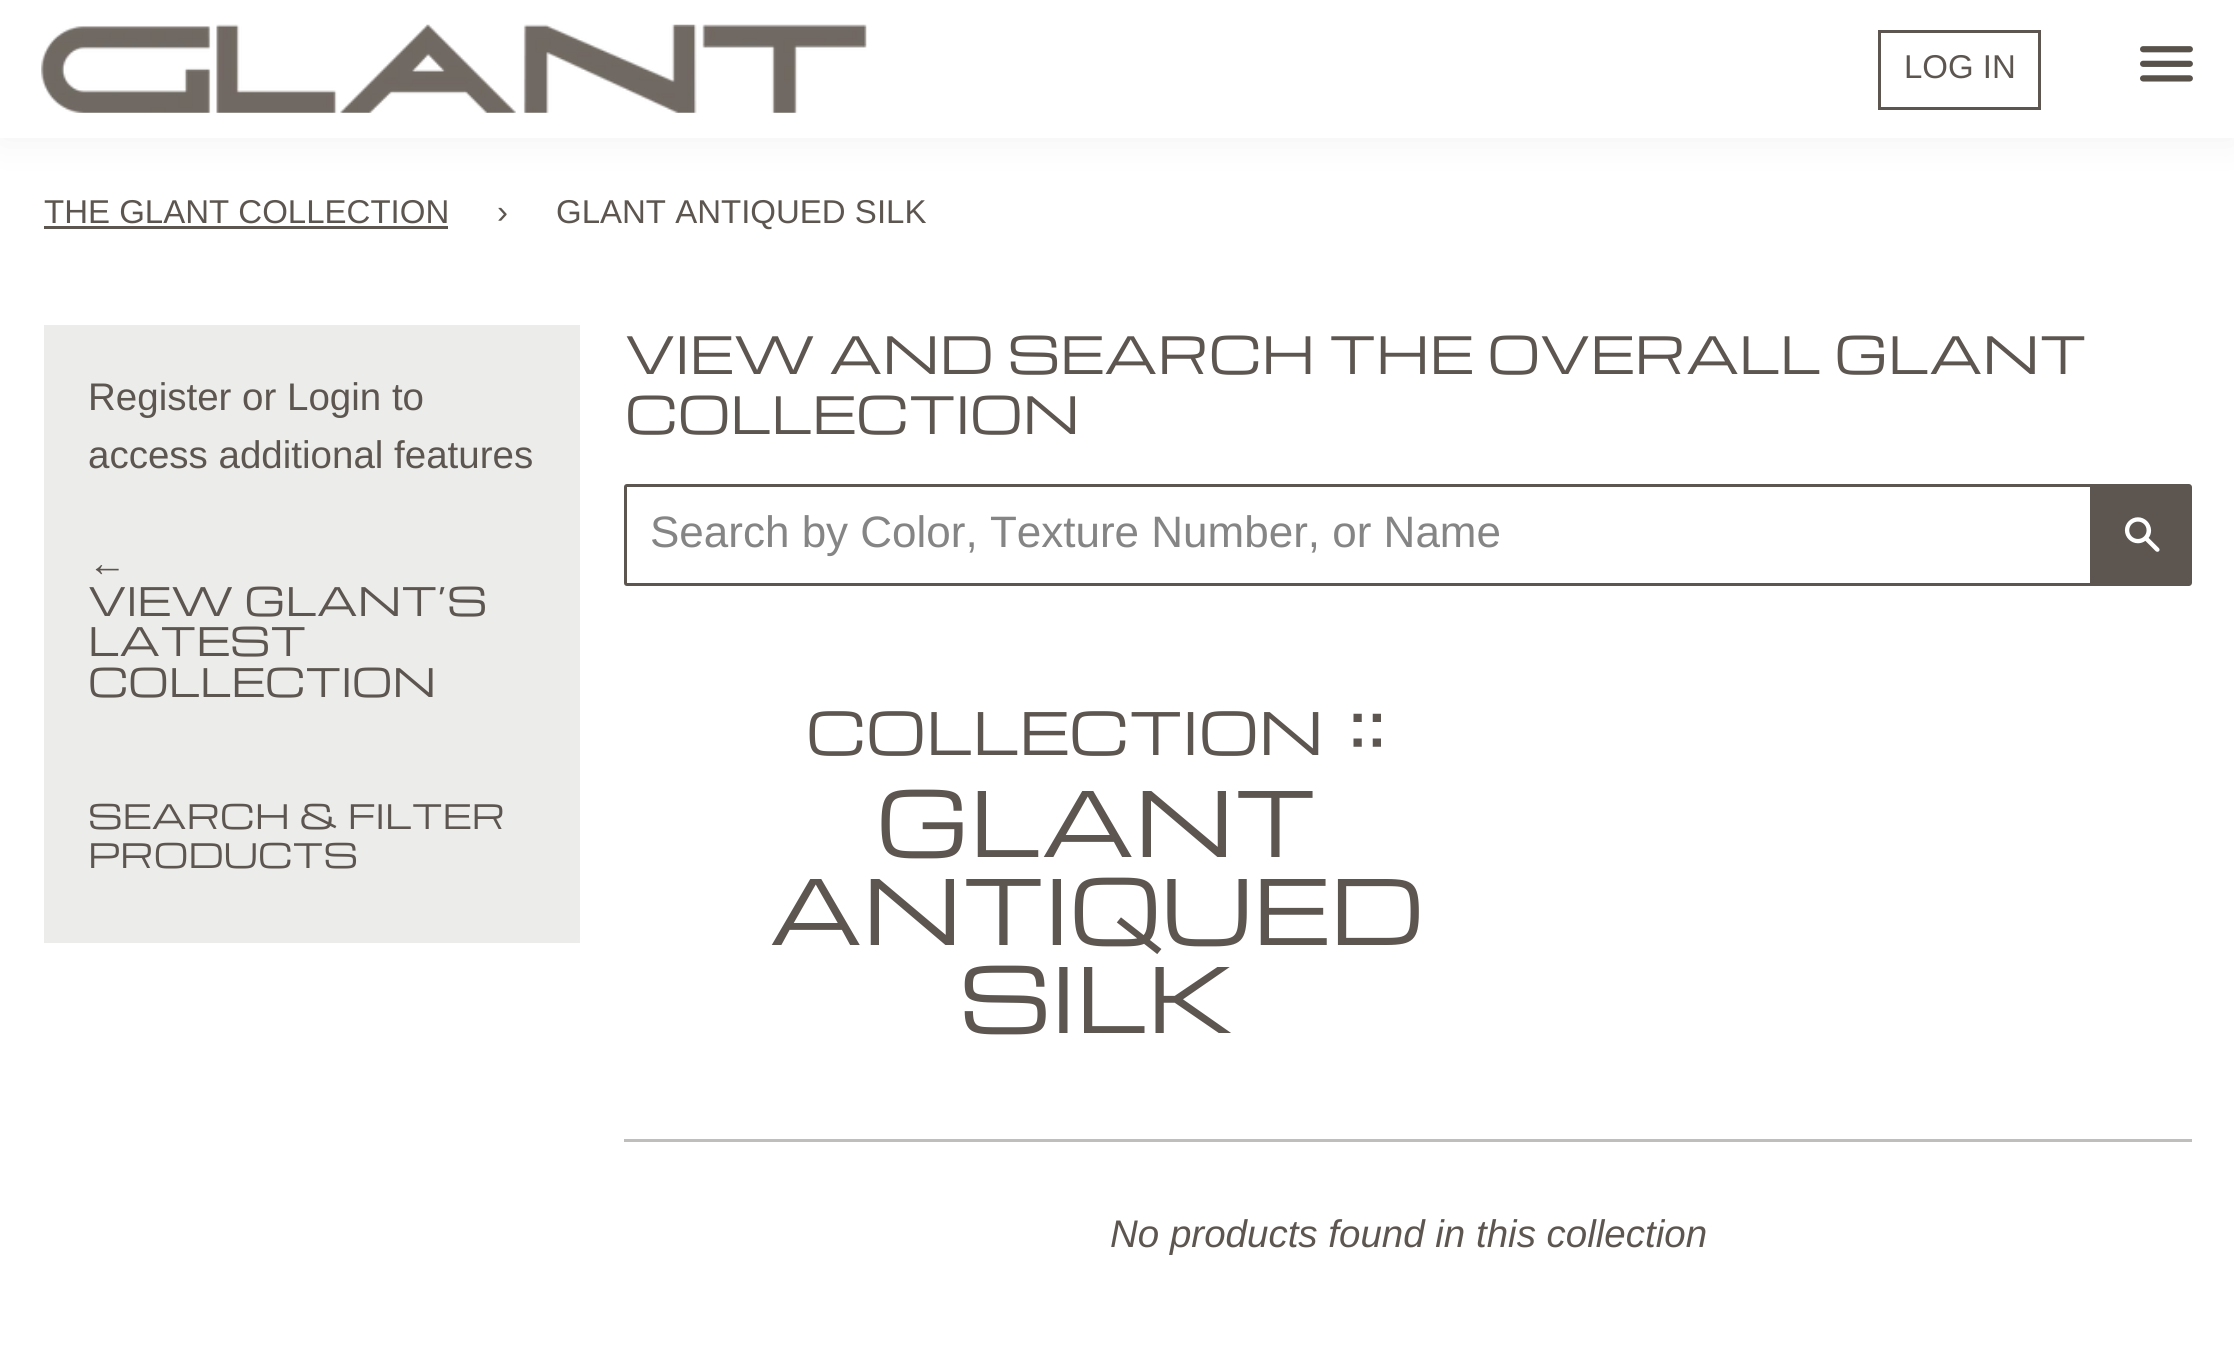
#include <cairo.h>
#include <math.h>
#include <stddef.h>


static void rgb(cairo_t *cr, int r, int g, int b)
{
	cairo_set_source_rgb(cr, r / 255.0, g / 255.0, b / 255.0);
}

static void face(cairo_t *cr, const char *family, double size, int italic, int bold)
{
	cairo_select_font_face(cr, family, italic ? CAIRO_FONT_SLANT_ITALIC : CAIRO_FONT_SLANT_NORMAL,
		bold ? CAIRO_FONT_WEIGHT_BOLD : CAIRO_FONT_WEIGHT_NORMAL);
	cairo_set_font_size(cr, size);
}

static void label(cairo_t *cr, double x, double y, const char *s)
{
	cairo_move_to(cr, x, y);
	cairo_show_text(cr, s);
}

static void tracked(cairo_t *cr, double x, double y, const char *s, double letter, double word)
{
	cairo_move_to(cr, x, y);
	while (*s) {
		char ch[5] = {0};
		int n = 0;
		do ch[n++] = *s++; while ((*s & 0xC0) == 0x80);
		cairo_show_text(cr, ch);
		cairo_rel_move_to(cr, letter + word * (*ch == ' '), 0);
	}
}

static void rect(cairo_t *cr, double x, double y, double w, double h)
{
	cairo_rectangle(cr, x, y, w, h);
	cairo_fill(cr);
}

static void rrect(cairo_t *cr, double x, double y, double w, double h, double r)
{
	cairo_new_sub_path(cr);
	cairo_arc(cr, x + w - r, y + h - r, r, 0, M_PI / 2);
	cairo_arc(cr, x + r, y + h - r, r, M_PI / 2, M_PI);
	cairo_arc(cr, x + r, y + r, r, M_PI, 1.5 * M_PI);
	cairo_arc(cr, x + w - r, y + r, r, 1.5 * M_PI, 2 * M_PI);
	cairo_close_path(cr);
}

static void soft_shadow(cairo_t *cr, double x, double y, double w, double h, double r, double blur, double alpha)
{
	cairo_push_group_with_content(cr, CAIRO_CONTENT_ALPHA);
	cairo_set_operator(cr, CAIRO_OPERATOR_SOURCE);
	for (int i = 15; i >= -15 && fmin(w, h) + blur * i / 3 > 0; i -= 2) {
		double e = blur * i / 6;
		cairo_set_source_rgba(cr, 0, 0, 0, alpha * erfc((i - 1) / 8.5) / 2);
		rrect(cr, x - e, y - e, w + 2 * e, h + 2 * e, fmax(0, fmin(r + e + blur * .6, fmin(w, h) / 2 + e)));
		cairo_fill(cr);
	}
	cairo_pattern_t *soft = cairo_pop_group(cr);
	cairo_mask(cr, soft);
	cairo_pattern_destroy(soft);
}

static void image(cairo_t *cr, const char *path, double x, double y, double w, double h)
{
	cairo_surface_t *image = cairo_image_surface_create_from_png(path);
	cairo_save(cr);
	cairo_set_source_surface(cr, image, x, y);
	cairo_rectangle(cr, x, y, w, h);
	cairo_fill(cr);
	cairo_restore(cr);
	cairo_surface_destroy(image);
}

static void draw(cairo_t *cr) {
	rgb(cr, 255, 255, 255);
	cairo_paint(cr);
	rgb(cr, 0, 0, 0);
	soft_shadow(cr, 0, 0, 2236, 138, 0, 22, 0.06);
	rgb(cr, 255, 255, 255);
	rect(cr, 0, 0, 2234, 138);
	image(cr, "image0.png", 41, 24, 826, 89);
	cairo_rectangle(cr, 1879.5, 31.5, 160, 77);
	rgb(cr, 93, 86, 80);
	cairo_set_line_width(cr, 3);
	cairo_stroke(cr);
	face(cr, "Liberation Sans", 33, 0, 0);
	label(cr, 1904, 78, "LOG IN");
	image(cr, "image1.png", 2140, 46, 53, 36);
	label(cr, 44, 223, "THE GLANT COLLECTION");
	rect(cr, 44, 226, 404, 3);
	label(cr, 497, 223, "›");
	label(cr, 556, 223, "GLANT ANTIQUED SILK");
	rgb(cr, 236, 236, 235);
	rect(cr, 44, 325, 536, 618);
	face(cr, "Liberation Sans", 38.5, 0, 0);
	rgb(cr, 93, 86, 80);
	label(cr, 88, 410, "Register or Login to");
	label(cr, 88, 468, "access additional features");
	label(cr, 88, 576, "←");
	face(cr, "Michroma", 38.5, 0, 0);
	label(cr, 88, 616, "VIEW GLANT’S");
	label(cr, 88, 656, "LATEST");
	label(cr, 88, 697, "COLLECTION");
	face(cr, "Michroma", 33, 0, 0);
	label(cr, 88, 829, "SEARCH & FILTER");
	label(cr, 88, 868, "PRODUCTS");
	face(cr, "Michroma", 50.3, 0, 0);
	tracked(cr, 625, 374, "VIEW AND SEARCH THE OVERALL GLANT", 0, -0.5);
	label(cr, 625, 434, "COLLECTION");
	cairo_new_path(cr);
	cairo_move_to(cr, 627, 485.5);
	cairo_line_to(cr, 2091.5, 485.5);
	cairo_line_to(cr, 2091.5, 584.5);
	cairo_line_to(cr, 627, 584.5);
	cairo_curve_to(cr, 626, 584.5, 625.5, 584, 625.5, 583);
	cairo_line_to(cr, 625.5, 487);
	cairo_curve_to(cr, 625.5, 486, 626, 485.5, 627, 485.5);
	cairo_close_path(cr);
	cairo_stroke(cr);
	face(cr, "Liberation Sans", 44, 0, 0);
	rgb(cr, 133, 133, 133);
	label(cr, 650, 547, "Search by Color, Texture Number, or Name");
	rgb(cr, 93, 86, 80);
	cairo_new_path(cr);
	cairo_move_to(cr, 2093, 484);
	cairo_line_to(cr, 2189, 484);
	cairo_curve_to(cr, 2190.5, 484, 2192, 485.5, 2192, 487);
	cairo_line_to(cr, 2192, 583);
	cairo_curve_to(cr, 2192, 584.5, 2190.5, 586, 2189, 586);
	cairo_line_to(cr, 2093, 586);
	cairo_close_path(cr);
	cairo_fill(cr);
	image(cr, "image2.png", 2124, 517, 36, 35);
	face(cr, "Michroma", 57.25, 0, 0);
	label(cr, 806, 755, "COLLECTION");
	face(cr, "Michroma", 88, 0, 0);
	label(cr, 1348, 755, "::");
	label(cr, 876, 857, "GLANT");
	label(cr, 769, 945, "ANTIQUED");
	label(cr, 959, 1033, "SILK");
	rgb(cr, 191, 190, 188);
	rect(cr, 624, 1139, 1568, 3);
	face(cr, "Liberation Sans", 38.5, 1, 0);
	rgb(cr, 93, 86, 80);
	label(cr, 1110, 1247, "No products found in this collection");
}

int main(void) {
	cairo_surface_t *surface = cairo_image_surface_create(CAIRO_FORMAT_RGB24, 2234, 1347);
	cairo_t *cr = cairo_create(surface);
	cairo_font_options_t *options = cairo_font_options_create();
	cairo_font_options_set_hint_metrics(options, CAIRO_HINT_METRICS_OFF);
	cairo_font_options_set_hint_style(options, CAIRO_HINT_STYLE_NONE);
	cairo_set_font_options(cr, options);
	cairo_set_miter_limit(cr, 4);
	draw(cr);
	cairo_surface_write_to_png(surface, "render.png");
	cairo_font_options_destroy(options);
	cairo_destroy(cr);
	cairo_surface_destroy(surface);
	return 0;
}
